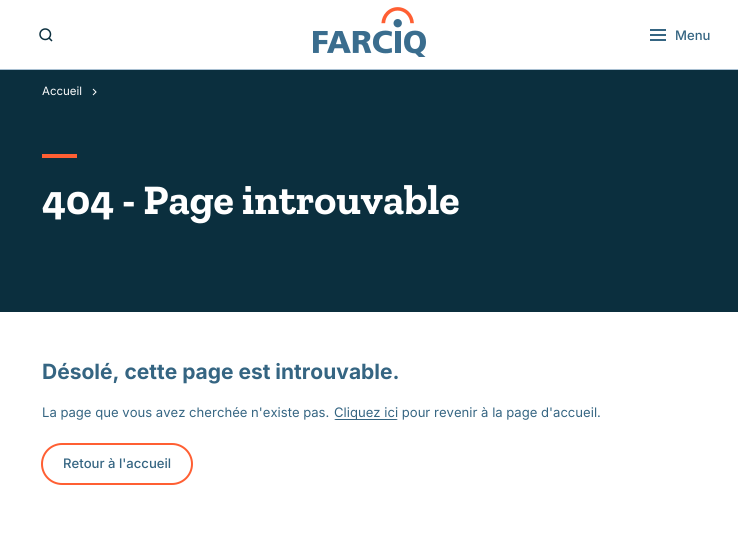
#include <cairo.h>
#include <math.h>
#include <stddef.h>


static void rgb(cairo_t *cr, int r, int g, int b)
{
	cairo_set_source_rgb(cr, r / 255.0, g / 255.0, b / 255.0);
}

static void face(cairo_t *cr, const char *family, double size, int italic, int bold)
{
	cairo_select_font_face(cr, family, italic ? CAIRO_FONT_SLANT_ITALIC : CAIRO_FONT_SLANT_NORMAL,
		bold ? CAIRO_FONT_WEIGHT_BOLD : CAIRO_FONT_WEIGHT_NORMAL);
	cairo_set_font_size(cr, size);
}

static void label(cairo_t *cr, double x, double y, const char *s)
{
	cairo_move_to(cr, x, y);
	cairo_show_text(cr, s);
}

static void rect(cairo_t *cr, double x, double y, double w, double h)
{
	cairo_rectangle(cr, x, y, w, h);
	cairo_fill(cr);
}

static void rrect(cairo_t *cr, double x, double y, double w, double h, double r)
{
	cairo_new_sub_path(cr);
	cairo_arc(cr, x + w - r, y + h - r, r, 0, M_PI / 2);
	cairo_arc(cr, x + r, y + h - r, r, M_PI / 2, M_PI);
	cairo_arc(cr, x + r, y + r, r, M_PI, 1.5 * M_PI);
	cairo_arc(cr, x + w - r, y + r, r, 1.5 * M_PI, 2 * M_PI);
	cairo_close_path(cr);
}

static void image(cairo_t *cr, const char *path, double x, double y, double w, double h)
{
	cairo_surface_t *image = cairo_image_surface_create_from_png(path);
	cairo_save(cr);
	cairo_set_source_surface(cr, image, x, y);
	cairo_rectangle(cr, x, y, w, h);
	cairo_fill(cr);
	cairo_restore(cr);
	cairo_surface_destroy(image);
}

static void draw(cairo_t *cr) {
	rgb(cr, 255, 255, 255);
	cairo_paint(cr);
	rgb(cr, 168, 191, 209);
	rect(cr, 0, 69, 738, 1);
	image(cr, "image0.png", 39, 28, 14, 14);
	image(cr, "image1.png", 313, 7, 113, 50);
	rgb(cr, 53, 101, 130);
	rect(cr, 650, 29, 16, 2);
	rect(cr, 650, 34, 16, 2);
	rect(cr, 650, 39, 16, 2);
	face(cr, "Inter Medium", 13.1, 0, 0);
	label(cr, 675, 40, "Menu");
	rgb(cr, 11, 47, 62);
	rect(cr, 0, 70, 738, 242);
	face(cr, "Inter", 11.5, 0, 0);
	rgb(cr, 255, 255, 255);
	label(cr, 42, 95, "Accueil");
	cairo_new_path(cr);
	cairo_move_to(cr, 93, 89);
	cairo_line_to(cr, 96, 92);
	cairo_line_to(cr, 93, 95);
	cairo_set_line_width(cr, 1);
	cairo_stroke(cr);
	rgb(cr, 255, 95, 51);
	rect(cr, 42, 154, 35, 4);
	face(cr, "Zilla Slab", 42, 0, 1);
	rgb(cr, 255, 255, 255);
	label(cr, 42, 214, "404 - Page introuvable");
	face(cr, "Inter", 21, 0, 1);
	rgb(cr, 53, 101, 130);
	label(cr, 42, 379, "Désolé, cette page est introuvable.");
	face(cr, "Inter", 13.1, 0, 0);
	label(cr, 42, 417, "La page que vous avez cherchée n'existe pas.");
	cairo_save(cr);
	rrect(cr, 334, 404, 64, 16, 2);
	cairo_clip(cr);
	rect(cr, 334, 419, 64, 1);
	cairo_restore(cr);
	label(cr, 334, 417, "Cliquez ici pour revenir à la page d'accueil.");
	rrect(cr, 42, 444, 150, 40, 20);
	rgb(cr, 255, 95, 51);
	cairo_set_line_width(cr, 2);
	cairo_stroke(cr);
	face(cr, "Inter Medium", 13.1, 0, 0);
	rgb(cr, 53, 101, 130);
	label(cr, 63, 468, "Retour à l'accueil");
}

int main(void) {
	cairo_surface_t *surface = cairo_image_surface_create(CAIRO_FORMAT_RGB24, 738, 558);
	cairo_t *cr = cairo_create(surface);
	cairo_font_options_t *options = cairo_font_options_create();
	cairo_font_options_set_hint_metrics(options, CAIRO_HINT_METRICS_OFF);
	cairo_font_options_set_hint_style(options, CAIRO_HINT_STYLE_NONE);
	cairo_set_font_options(cr, options);
	cairo_set_miter_limit(cr, 4);
	draw(cr);
	cairo_surface_write_to_png(surface, "render.png");
	cairo_font_options_destroy(options);
	cairo_destroy(cr);
	cairo_surface_destroy(surface);
	return 0;
}
